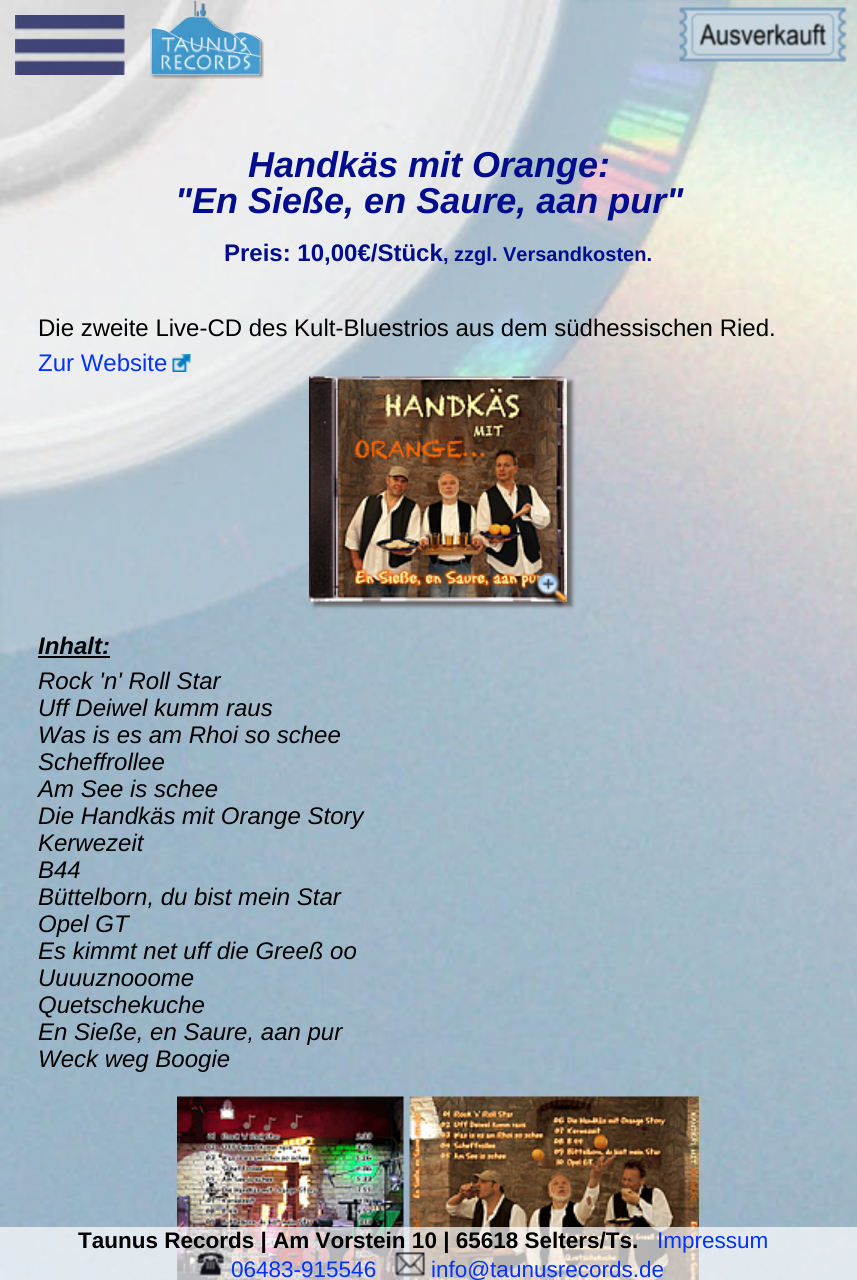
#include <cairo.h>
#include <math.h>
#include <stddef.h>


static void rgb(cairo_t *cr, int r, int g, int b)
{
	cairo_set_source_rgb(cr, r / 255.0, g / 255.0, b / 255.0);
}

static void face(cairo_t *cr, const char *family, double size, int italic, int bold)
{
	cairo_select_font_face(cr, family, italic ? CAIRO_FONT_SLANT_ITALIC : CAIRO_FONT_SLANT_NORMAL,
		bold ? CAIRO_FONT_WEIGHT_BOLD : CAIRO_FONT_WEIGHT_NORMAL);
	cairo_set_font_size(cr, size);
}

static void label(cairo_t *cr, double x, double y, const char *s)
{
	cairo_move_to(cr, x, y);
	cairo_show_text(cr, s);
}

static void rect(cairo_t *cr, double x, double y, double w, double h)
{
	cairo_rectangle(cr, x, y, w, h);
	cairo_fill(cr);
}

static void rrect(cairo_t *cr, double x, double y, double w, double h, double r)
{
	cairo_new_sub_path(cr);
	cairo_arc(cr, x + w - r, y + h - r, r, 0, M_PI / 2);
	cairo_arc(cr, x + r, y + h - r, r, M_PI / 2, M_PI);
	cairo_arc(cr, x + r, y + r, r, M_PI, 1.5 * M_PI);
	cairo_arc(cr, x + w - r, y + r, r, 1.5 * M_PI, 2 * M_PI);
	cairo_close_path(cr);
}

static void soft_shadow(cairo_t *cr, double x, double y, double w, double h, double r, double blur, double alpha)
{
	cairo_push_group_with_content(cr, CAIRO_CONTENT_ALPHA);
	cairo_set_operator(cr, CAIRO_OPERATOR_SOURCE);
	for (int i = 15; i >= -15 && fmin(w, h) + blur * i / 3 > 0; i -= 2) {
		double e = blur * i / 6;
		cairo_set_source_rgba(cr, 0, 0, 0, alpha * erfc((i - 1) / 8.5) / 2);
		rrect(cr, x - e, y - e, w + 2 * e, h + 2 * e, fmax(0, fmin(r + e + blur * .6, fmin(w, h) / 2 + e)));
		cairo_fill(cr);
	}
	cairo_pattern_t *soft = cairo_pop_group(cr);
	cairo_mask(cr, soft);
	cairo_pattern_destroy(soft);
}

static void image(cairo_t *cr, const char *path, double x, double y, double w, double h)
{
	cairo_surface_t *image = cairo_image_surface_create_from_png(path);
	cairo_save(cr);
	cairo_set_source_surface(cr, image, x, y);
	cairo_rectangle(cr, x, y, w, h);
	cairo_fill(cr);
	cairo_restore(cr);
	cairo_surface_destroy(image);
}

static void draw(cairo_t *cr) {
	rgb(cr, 255, 255, 255);
	cairo_paint(cr);
	image(cr, "image0.png", 0, 0, 857, 1280);
	image(cr, "image1.png", 15, 15, 110, 60);
	image(cr, "image2.png", 150, 0, 114, 79);
	face(cr, "Liberation Sans", 36, 1, 1);
	rgb(cr, 0, 13, 140);
	label(cr, 248, 177, "Handkäs mit Orange:");
	label(cr, 175, 213, "\"En Sieße, en Saure, aan pur\"");
	image(cr, "image3.png", 679, 7, 168, 55);
	face(cr, "Liberation Sans", 24, 0, 1);
	label(cr, 224, 261, "Preis: 10,00€/Stück");
	face(cr, "Liberation Sans", 20, 0, 1);
	label(cr, 443, 261, ", zzgl. Versandkosten.");
	face(cr, "Liberation Sans", 24, 0, 0);
	rgb(cr, 0, 0, 0);
	label(cr, 38, 336, "Die zweite Live-CD des Kult-Bluestrios aus dem südhessischen Ried.");
	rgb(cr, 0, 51, 255);
	label(cr, 38, 371, "Zur Website");
	image(cr, "image4.png", 172, 354, 19, 18);
	rgb(cr, 102, 102, 102);
	soft_shadow(cr, 314, 381, 258, 225, 0, 2, 1);
	image(cr, "image5.png", 309, 376, 258, 226);
	image(cr, "image6.png", 531, 572, 36, 36);
	face(cr, "Liberation Sans", 24, 1, 1);
	rgb(cr, 0, 0, 0);
	label(cr, 38, 654, "Inhalt:");
	rect(cr, 38, 656, 72, 2);
	face(cr, "Liberation Sans", 24, 1, 0);
	label(cr, 38, 689, "Rock 'n' Roll Star");
	label(cr, 38, 716, "Uff Deiwel kumm raus");
	label(cr, 38, 743, "Was is es am Rhoi so schee");
	label(cr, 38, 770, "Scheffrollee");
	label(cr, 38, 797, "Am See is schee");
	label(cr, 38, 824, "Die Handkäs mit Orange Story");
	label(cr, 38, 851, "Kerwezeit");
	label(cr, 38, 878, "B44");
	label(cr, 38, 905, "Büttelborn, du bist mein Star");
	label(cr, 38, 932, "Opel GT");
	label(cr, 38, 959, "Es kimmt net uff die Greeß oo");
	label(cr, 38, 986, "Uuuuznooome");
	label(cr, 38, 1013, "Quetschekuche");
	label(cr, 38, 1040, "En Sieße, en Saure, aan pur");
	label(cr, 38, 1067, "Weck weg Boogie");
	image(cr, "image7.png", 177, 1096, 227, 184);
	image(cr, "image8.png", 409, 1096, 290, 184);
	cairo_set_source_rgba(cr, 1, 1, 1, 0.7);
	rect(cr, 0, 1227, 857, 53);
	face(cr, "Liberation Sans", 22.5, 0, 1);
	rgb(cr, 0, 0, 0);
	label(cr, 78, 1248, "Taunus Records | Am Vorstein 10 | 65618 Selters/Ts.");
	face(cr, "Liberation Sans", 22.5, 0, 0);
	rgb(cr, 0, 51, 255);
	label(cr, 657, 1248, "Impressum");
	image(cr, "image9.png", 195, 1252, 31, 25);
	label(cr, 231, 1277, "06483-915546");
	image(cr, "image10.png", 394, 1252, 31, 25);
	label(cr, 431, 1277, "info@taunusrecords.de");
}

int main(void) {
	cairo_surface_t *surface = cairo_image_surface_create(CAIRO_FORMAT_RGB24, 857, 1280);
	cairo_t *cr = cairo_create(surface);
	cairo_font_options_t *options = cairo_font_options_create();
	cairo_font_options_set_hint_metrics(options, CAIRO_HINT_METRICS_OFF);
	cairo_font_options_set_hint_style(options, CAIRO_HINT_STYLE_NONE);
	cairo_set_font_options(cr, options);
	cairo_set_miter_limit(cr, 4);
	draw(cr);
	cairo_surface_write_to_png(surface, "render.png");
	cairo_font_options_destroy(options);
	cairo_destroy(cr);
	cairo_surface_destroy(surface);
	return 0;
}
